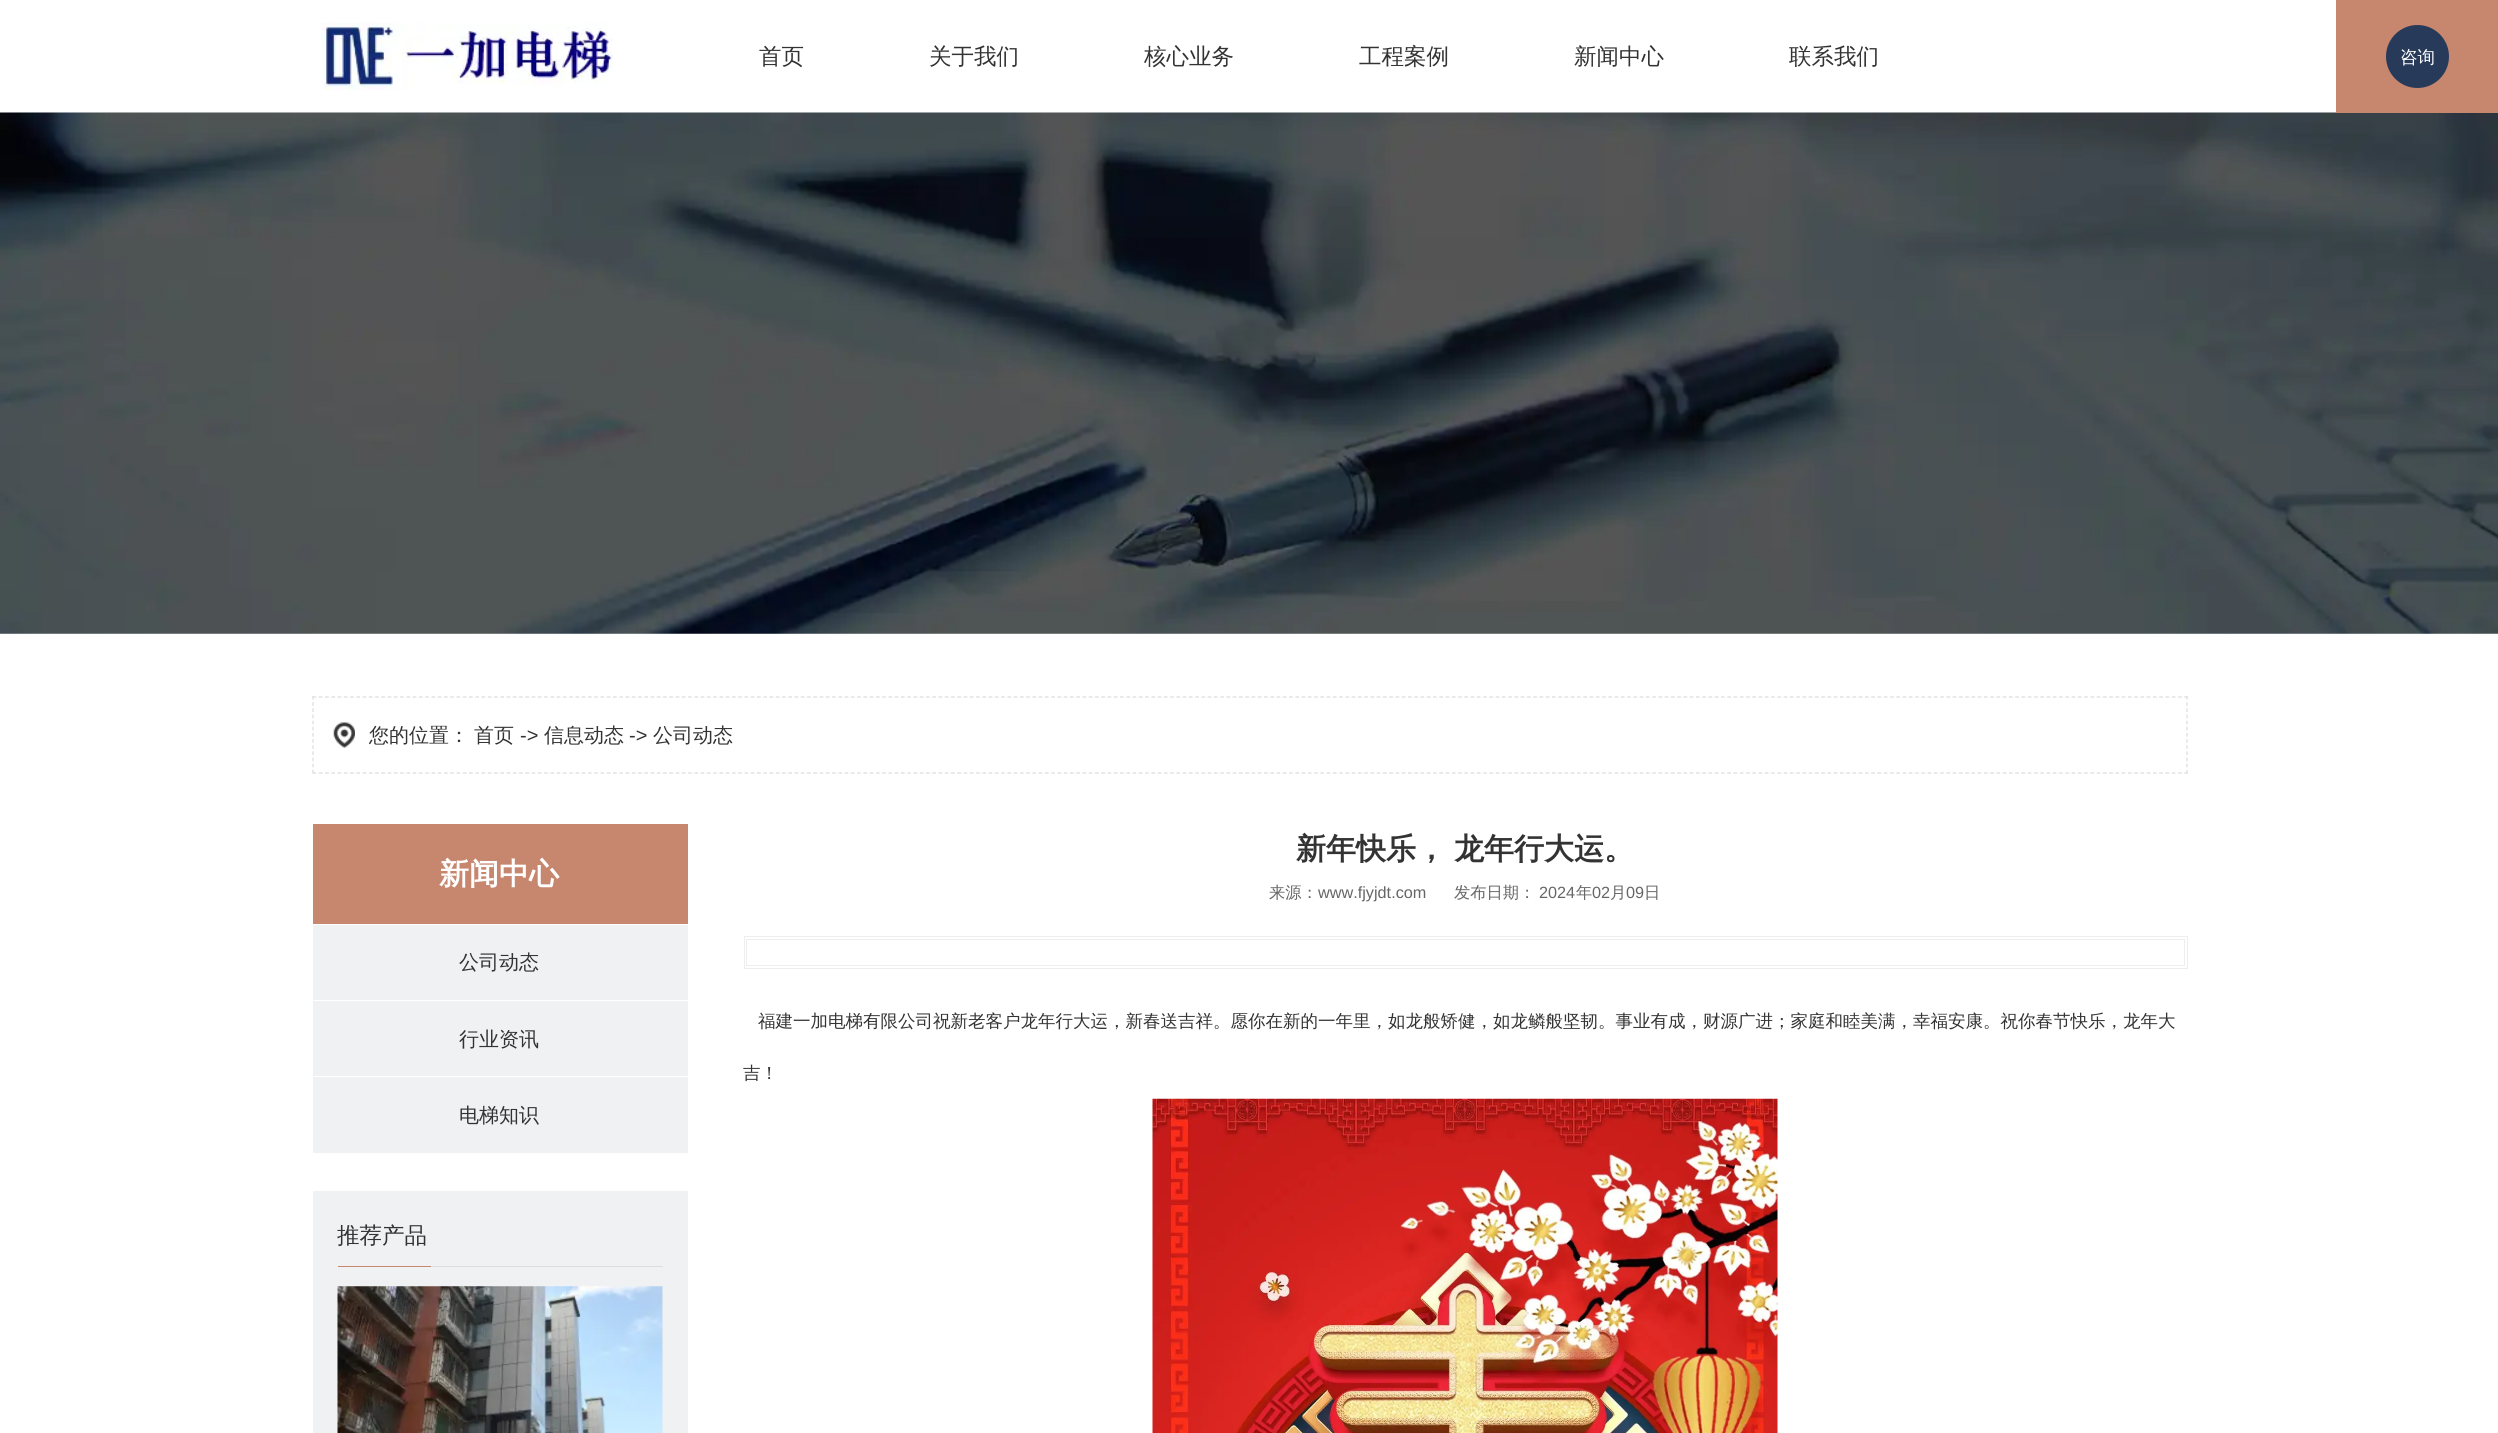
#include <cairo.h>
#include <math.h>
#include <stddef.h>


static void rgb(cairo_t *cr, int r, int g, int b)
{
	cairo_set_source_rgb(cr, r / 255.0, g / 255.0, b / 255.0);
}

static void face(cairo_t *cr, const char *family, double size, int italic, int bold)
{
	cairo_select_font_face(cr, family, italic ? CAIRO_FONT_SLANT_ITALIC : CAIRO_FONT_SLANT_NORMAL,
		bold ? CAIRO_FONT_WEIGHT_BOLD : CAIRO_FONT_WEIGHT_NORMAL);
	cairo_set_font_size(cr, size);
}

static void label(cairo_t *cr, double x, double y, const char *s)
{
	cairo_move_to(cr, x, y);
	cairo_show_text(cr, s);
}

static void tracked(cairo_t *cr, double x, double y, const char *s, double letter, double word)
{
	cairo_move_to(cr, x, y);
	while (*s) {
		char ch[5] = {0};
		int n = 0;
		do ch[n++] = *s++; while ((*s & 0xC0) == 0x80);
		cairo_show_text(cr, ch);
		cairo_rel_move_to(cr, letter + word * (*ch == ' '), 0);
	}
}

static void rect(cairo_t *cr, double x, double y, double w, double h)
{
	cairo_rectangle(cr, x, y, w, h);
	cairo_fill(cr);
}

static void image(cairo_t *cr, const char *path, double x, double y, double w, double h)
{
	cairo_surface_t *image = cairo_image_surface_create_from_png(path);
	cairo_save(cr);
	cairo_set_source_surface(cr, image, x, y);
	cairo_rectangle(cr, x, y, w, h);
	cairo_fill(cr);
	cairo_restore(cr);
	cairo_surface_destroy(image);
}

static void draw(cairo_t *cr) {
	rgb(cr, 255, 255, 255);
	cairo_paint(cr);
	image(cr, "image0.png", 321, 22, 292, 68);
	face(cr, "WenQuanYi Zen Hei Medium", 22.5, 0, 0);
	rgb(cr, 51, 51, 51);
	label(cr, 759, 64, "首页");
	label(cr, 929, 64, "关于我们");
	label(cr, 1144, 64, "核心业务");
	label(cr, 1359, 64, "工程案例");
	label(cr, 1574, 64, "新闻中心");
	label(cr, 1789, 64, "联系我们");
	image(cr, "image1.png", 0, 112, 2498, 522);
	rgb(cr, 199, 134, 110);
	rect(cr, 2336, 0, 162, 113);
	rgb(cr, 40, 58, 90);
	cairo_arc(cr, 2417.5, 56.5, 31.5, 0, 2 * M_PI);
	cairo_fill(cr);
	face(cr, "WenQuanYi Zen Hei Medium", 17.5, 0, 0);
	rgb(cr, 255, 255, 255);
	label(cr, 2400, 63, "咨询");
	cairo_new_path(cr);
	cairo_move_to(cr, 312.5, 697);
	cairo_line_to(cr, 2187.5, 697);
	rgb(cr, 221, 221, 221);
	cairo_set_line_width(cr, 1.2);
	cairo_set_dash(cr, (double[]){3.75, 2.51}, 2, 0);
	cairo_stroke(cr);
	cairo_new_path(cr);
	cairo_move_to(cr, 2187, 696);
	cairo_line_to(cr, 2187, 774);
	cairo_set_dash(cr, (double[]){3.75, 2.4}, 2, 0);
	cairo_stroke(cr);
	cairo_new_path(cr);
	cairo_move_to(cr, 312.5, 773);
	cairo_line_to(cr, 2187.5, 773);
	cairo_set_dash(cr, (double[]){3.75, 2.51}, 2, 0);
	cairo_stroke(cr);
	cairo_new_path(cr);
	cairo_move_to(cr, 313, 696);
	cairo_line_to(cr, 313, 774);
	cairo_set_dash(cr, (double[]){3.75, 2.4}, 2, 0);
	cairo_stroke(cr);
	image(cr, "image2.png", 333, 722, 22, 26);
	face(cr, "WenQuanYi Zen Hei Medium", 20, 0, 0);
	rgb(cr, 51, 51, 51);
	label(cr, 369, 742, "您的位置：");
	label(cr, 474, 742, "首页");
	face(cr, "Liberation Sans", 20, 0, 0);
	label(cr, 520, 742, "->");
	face(cr, "WenQuanYi Zen Hei Medium", 20, 0, 0);
	label(cr, 544, 742, "信息动态");
	face(cr, "Liberation Sans", 20, 0, 0);
	label(cr, 629, 742, "->");
	face(cr, "WenQuanYi Zen Hei Medium", 20, 0, 0);
	label(cr, 653, 742, "公司动态");
	rgb(cr, 240, 241, 243);
	rect(cr, 313, 925, 375, 228);
	rgb(cr, 199, 134, 110);
	rect(cr, 313, 824, 375, 100);
	face(cr, "WenQuanYi Zen Hei", 30, 0, 1);
	rgb(cr, 255, 255, 255);
	label(cr, 439, 884, "新闻中心");
	rect(cr, 313, 1000, 375, 1);
	face(cr, "WenQuanYi Zen Hei Medium", 20, 0, 0);
	rgb(cr, 51, 51, 51);
	label(cr, 459, 969, "公司动态");
	rgb(cr, 255, 255, 255);
	rect(cr, 313, 1076, 375, 1);
	rgb(cr, 51, 51, 51);
	label(cr, 459, 1046, "行业资讯");
	label(cr, 459, 1122, "电梯知识");
	rgb(cr, 240, 241, 243);
	rect(cr, 313, 1191, 375, 242);
	rgb(cr, 221, 221, 221);
	rect(cr, 431, 1266, 232, 1);
	face(cr, "WenQuanYi Zen Hei Medium", 22.5, 0, 0);
	rgb(cr, 51, 51, 51);
	label(cr, 337, 1243, "推荐产品");
	rgb(cr, 199, 134, 110);
	rect(cr, 338, 1266, 93, 1);
	image(cr, "image3.png", 337, 1286, 326, 147);
	face(cr, "WenQuanYi Zen Hei", 30, 0, 1);
	rgb(cr, 51, 51, 51);
	tracked(cr, 1296, 859, "新年快乐， 龙年行大运。", 0, -1);
	face(cr, "WenQuanYi Zen Hei Medium", 16.25, 0, 0);
	rgb(cr, 102, 102, 102);
	label(cr, 1269, 898, "来源：");
	face(cr, "Liberation Sans", 16.25, 0, 0);
	label(cr, 1318, 898, "www.fjyjdt.com");
	face(cr, "WenQuanYi Zen Hei Medium", 16.25, 0, 0);
	label(cr, 1454, 898, "发布日期：");
	face(cr, "Liberation Sans", 16.25, 0, 0);
	label(cr, 1539, 898, "2024");
	face(cr, "WenQuanYi Zen Hei Medium", 16.25, 0, 0);
	label(cr, 1576, 898, "年");
	face(cr, "Liberation Sans", 16.25, 0, 0);
	label(cr, 1592, 898, "02");
	face(cr, "WenQuanYi Zen Hei Medium", 16.25, 0, 0);
	label(cr, 1610, 898, "月");
	face(cr, "Liberation Sans", 16.25, 0, 0);
	label(cr, 1626, 898, "09");
	face(cr, "WenQuanYi Zen Hei Medium", 16.25, 0, 0);
	label(cr, 1644, 898, "日");
	cairo_rectangle(cr, 744.5, 936.5, 1443, 32);
	rgb(cr, 238, 238, 238);
	cairo_set_line_width(cr, 1);
	cairo_set_dash(cr, NULL, 0, 0);
	cairo_stroke(cr);
	cairo_rectangle(cr, 746.5, 939.5, 1438, 26);
	cairo_stroke(cr);
	face(cr, "WenQuanYi Zen Hei Medium", 17.5, 0, 0);
	rgb(cr, 51, 51, 51);
	label(cr, 758, 1027, "福建一加电梯有限公司祝新老客户龙年行大运，新春送吉祥。愿你在新的一年里，如龙般矫健，如龙鳞般坚韧。事业有成，财源广进；家庭和睦美满，幸福安康。祝你春节快乐，龙年大");
	label(cr, 743, 1079, "吉！");
	image(cr, "image4.png", 1152, 1098, 626, 335);
}

int main(void) {
	cairo_surface_t *surface = cairo_image_surface_create(CAIRO_FORMAT_RGB24, 2498, 1433);
	cairo_t *cr = cairo_create(surface);
	cairo_font_options_t *options = cairo_font_options_create();
	cairo_font_options_set_hint_metrics(options, CAIRO_HINT_METRICS_OFF);
	cairo_font_options_set_hint_style(options, CAIRO_HINT_STYLE_NONE);
	cairo_set_font_options(cr, options);
	cairo_set_miter_limit(cr, 4);
	draw(cr);
	cairo_surface_write_to_png(surface, "render.png");
	cairo_font_options_destroy(options);
	cairo_destroy(cr);
	cairo_surface_destroy(surface);
	return 0;
}
